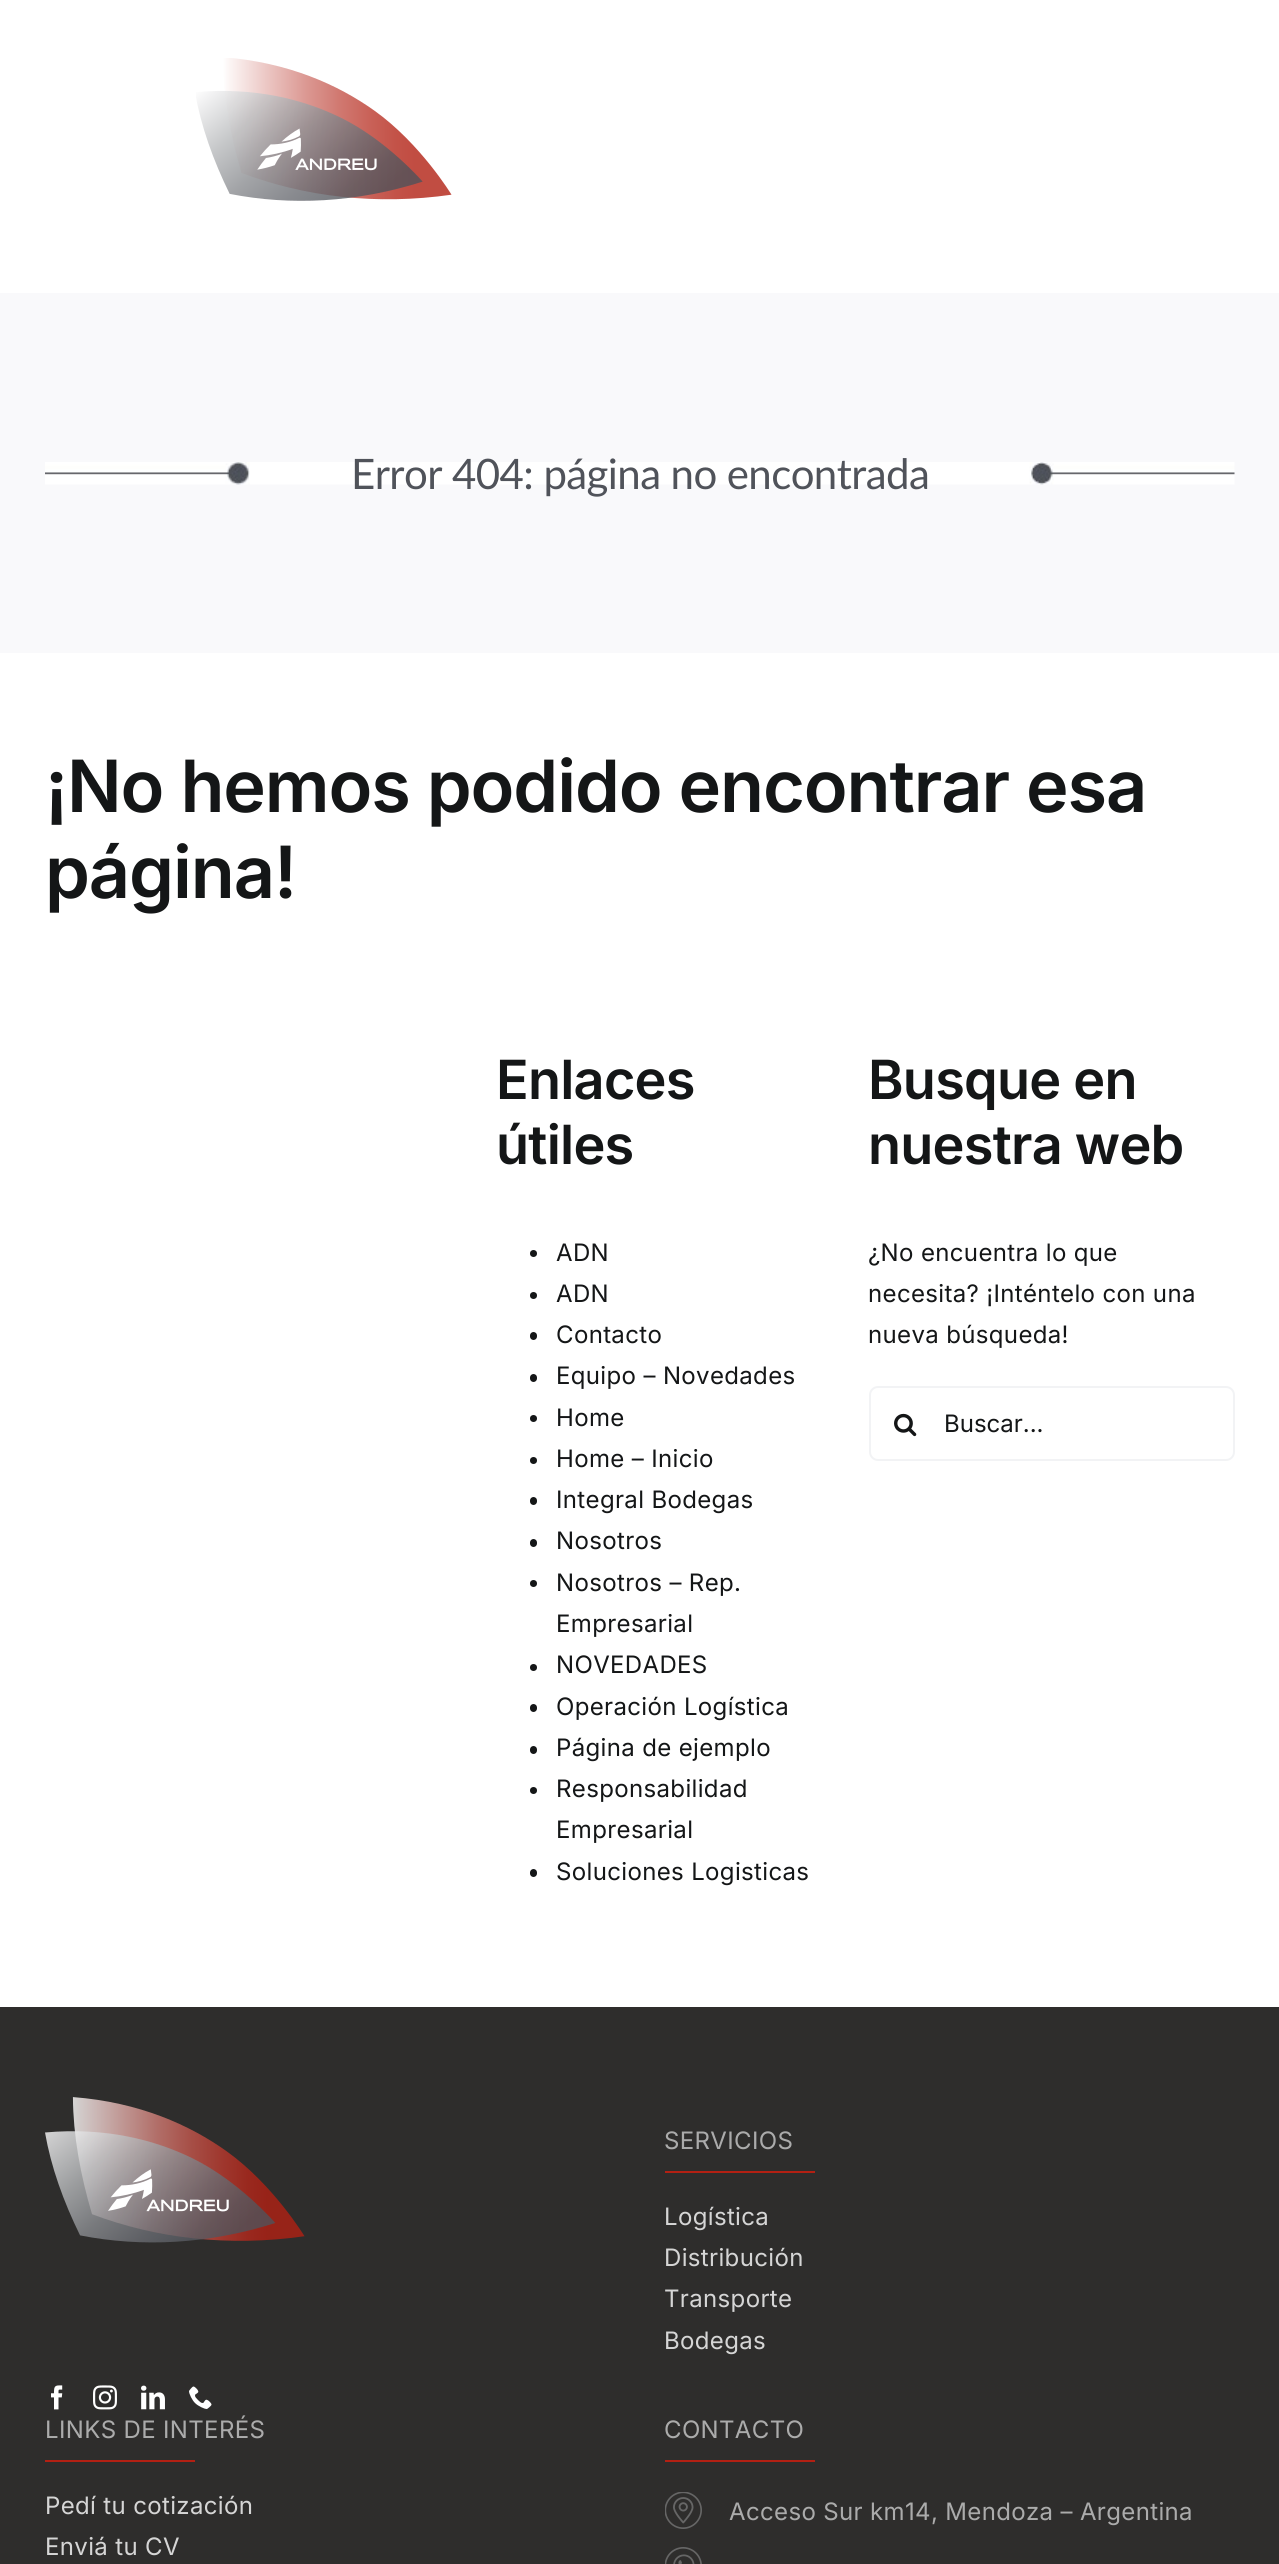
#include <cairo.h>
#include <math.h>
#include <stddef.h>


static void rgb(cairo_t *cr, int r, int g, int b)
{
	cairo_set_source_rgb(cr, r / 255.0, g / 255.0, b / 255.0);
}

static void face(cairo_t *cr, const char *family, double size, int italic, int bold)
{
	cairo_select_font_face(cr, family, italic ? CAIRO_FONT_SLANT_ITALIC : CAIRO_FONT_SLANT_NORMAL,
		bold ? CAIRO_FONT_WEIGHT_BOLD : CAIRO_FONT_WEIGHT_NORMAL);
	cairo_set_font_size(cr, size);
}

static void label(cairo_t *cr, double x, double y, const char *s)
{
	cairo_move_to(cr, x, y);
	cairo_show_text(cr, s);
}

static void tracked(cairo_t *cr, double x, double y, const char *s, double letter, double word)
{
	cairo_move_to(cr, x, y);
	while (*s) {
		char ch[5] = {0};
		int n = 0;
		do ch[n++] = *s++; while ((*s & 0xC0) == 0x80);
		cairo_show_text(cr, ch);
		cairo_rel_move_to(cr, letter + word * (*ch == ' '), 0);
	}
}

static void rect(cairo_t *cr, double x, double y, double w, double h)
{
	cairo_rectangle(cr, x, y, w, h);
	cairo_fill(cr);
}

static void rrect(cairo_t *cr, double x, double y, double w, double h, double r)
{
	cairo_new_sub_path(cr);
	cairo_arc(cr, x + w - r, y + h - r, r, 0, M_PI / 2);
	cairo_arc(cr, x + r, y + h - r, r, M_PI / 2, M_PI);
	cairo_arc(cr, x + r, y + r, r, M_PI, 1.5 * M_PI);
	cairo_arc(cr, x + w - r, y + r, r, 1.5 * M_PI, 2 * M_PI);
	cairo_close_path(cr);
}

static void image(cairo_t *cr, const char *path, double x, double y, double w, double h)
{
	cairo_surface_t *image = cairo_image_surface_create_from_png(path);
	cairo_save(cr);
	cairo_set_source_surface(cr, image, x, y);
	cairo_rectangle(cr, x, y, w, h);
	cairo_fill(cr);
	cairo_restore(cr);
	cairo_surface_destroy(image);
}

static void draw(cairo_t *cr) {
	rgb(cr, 255, 255, 255);
	cairo_paint(cr);
	image(cr, "image0.png", 196, 58, 256, 143);
	rgb(cr, 249, 249, 251);
	rect(cr, 0, 293, 1279, 360);
	image(cr, "image1.png", 45, 462, 1190, 23);
	face(cr, "Lato", 42, 0, 0);
	rgb(cr, 80, 83, 90);
	tracked(cr, 351, 489, "Error 404: página no encontrada", -0.6, 0);
	face(cr, "Inter SemiBold", 72, 0, 0);
	rgb(cr, 20, 22, 23);
	tracked(cr, 45, 812, "¡No hemos podido encontrar esa", -1.1, 0);
	tracked(cr, 45, 898, "página!", -1.1, 0);
	face(cr, "Inter SemiBold", 54, 0, 0);
	tracked(cr, 496, 1099, "Enlaces", -0.75, 0);
	tracked(cr, 496, 1164, "útiles", -0.75, 0);
	cairo_new_path(cr);
	cairo_arc(cr, 533.5, 1253.5, 3.5, 0, 2 * M_PI);
	cairo_fill(cr);
	face(cr, "Inter", 24, 0, 0);
	tracked(cr, 556, 1261, "ADN", 0.35, 0);
	cairo_new_path(cr);
	cairo_arc(cr, 533.5, 1295.5, 3.5, 0, 2 * M_PI);
	cairo_fill(cr);
	tracked(cr, 556, 1302, "ADN", 0.35, 0);
	rrect(cr, 530, 1332, 7, 8, 3.5);
	cairo_fill(cr);
	tracked(cr, 556, 1343, "Contacto", 0.35, 0);
	rrect(cr, 530, 1374, 7, 8, 3.5);
	cairo_fill(cr);
	tracked(cr, 556, 1384, "Equipo – Novedades", 0.35, 0);
	cairo_new_path(cr);
	cairo_arc(cr, 533.5, 1418.5, 3.5, 0, 2 * M_PI);
	cairo_fill(cr);
	tracked(cr, 556, 1426, "Home", 0.35, 0);
	cairo_new_path(cr);
	cairo_arc(cr, 533.5, 1460.5, 3.5, 0, 2 * M_PI);
	cairo_fill(cr);
	tracked(cr, 556, 1467, "Home – Inicio", 0.35, 0);
	rrect(cr, 530, 1497, 7, 8, 3.5);
	cairo_fill(cr);
	tracked(cr, 556, 1508, "Integral Bodegas", 0.35, 0);
	rrect(cr, 530, 1539, 7, 8, 3.5);
	cairo_fill(cr);
	tracked(cr, 556, 1549, "Nosotros", 0.35, 0);
	cairo_new_path(cr);
	cairo_arc(cr, 533.5, 1583.5, 3.5, 0, 2 * M_PI);
	cairo_fill(cr);
	tracked(cr, 556, 1591, "Nosotros – Rep.", 0.35, 0);
	tracked(cr, 556, 1632, "Empresarial", 0.35, 0);
	cairo_new_path(cr);
	cairo_arc(cr, 533.5, 1667.5, 3.5, 0, 2 * M_PI);
	cairo_fill(cr);
	tracked(cr, 556, 1673, "NOVEDADES", 0.35, 0);
	rrect(cr, 530, 1704, 7, 8, 3.5);
	cairo_fill(cr);
	tracked(cr, 556, 1715, "Operación Logística", 0.35, 0);
	rrect(cr, 530, 1746, 7, 8, 3.5);
	cairo_fill(cr);
	tracked(cr, 556, 1756, "Página de ejemplo", 0.35, 0);
	cairo_new_path(cr);
	cairo_arc(cr, 533.5, 1790.5, 3.5, 0, 2 * M_PI);
	cairo_fill(cr);
	tracked(cr, 556, 1797, "Responsabilidad", 0.35, 0);
	tracked(cr, 556, 1838, "Empresarial", 0.35, 0);
	rrect(cr, 530, 1869, 7, 8, 3.5);
	cairo_fill(cr);
	tracked(cr, 556, 1880, "Soluciones Logisticas", 0.35, 0);
	face(cr, "Inter SemiBold", 54, 0, 0);
	tracked(cr, 868, 1099, "Busque en", -0.75, 0);
	tracked(cr, 868, 1164, "nuestra web", -0.75, 0);
	face(cr, "Inter", 24, 0, 0);
	tracked(cr, 868, 1261, "¿No encuentra lo que", 0.35, 0);
	tracked(cr, 868, 1302, "necesita? ¡Inténtelo con una", 0.35, 0);
	tracked(cr, 868, 1343, "nueva búsqueda!", 0.35, 0);
	rrect(cr, 870, 1387, 364, 73, 8);
	rgb(cr, 242, 243, 245);
	cairo_stroke(cr);
	image(cr, "image2.png", 894, 1413, 23, 24);
	rgb(cr, 20, 22, 23);
	label(cr, 944, 1432, "Buscar...");
	rgb(cr, 46, 45, 44);
	rect(cr, 0, 2007, 1279, 557);
	image(cr, "image3.png", 45, 2097, 260, 146);
	image(cr, "image4.png", 51, 2385, 12, 25);
	image(cr, "image5.png", 93, 2385, 24, 25);
	image(cr, "image6.png", 141, 2385, 24, 25);
	image(cr, "image7.png", 189, 2386, 23, 23);
	rgb(cr, 171, 171, 171);
	tracked(cr, 664, 2149, "SERVICIOS", 0.35, 0);
	rgb(cr, 179, 32, 19);
	rect(cr, 665, 2171, 150, 2);
	rgb(cr, 213, 213, 213);
	tracked(cr, 664, 2225, "Logística", 0.35, 0);
	tracked(cr, 664, 2266, "Distribución", 0.35, 0);
	tracked(cr, 664, 2307, "Transporte", 0.35, 0);
	tracked(cr, 664, 2349, "Bodegas", 0.35, 0);
	rgb(cr, 171, 171, 171);
	tracked(cr, 45, 2438, "LINKS DE INTERÉS", 0.35, 0);
	rgb(cr, 179, 32, 19);
	rect(cr, 45, 2460, 150, 2);
	rgb(cr, 213, 213, 213);
	tracked(cr, 45, 2514, "Pedí tu cotización", 0.35, 0);
	tracked(cr, 45, 2555, "Enviá tu CV", 0.35, 0);
	rgb(cr, 171, 171, 171);
	tracked(cr, 664, 2438, "CONTACTO", 0.35, 0);
	rgb(cr, 179, 32, 19);
	rect(cr, 665, 2460, 150, 2);
	image(cr, "image8.png", 665, 2492, 37, 37);
	rgb(cr, 171, 171, 171);
	tracked(cr, 729, 2520, "Acceso Sur km14, Mendoza – Argentina", 0.35, 0);
	image(cr, "image9.png", 665, 2547, 37, 17);
}

int main(void) {
	cairo_surface_t *surface = cairo_image_surface_create(CAIRO_FORMAT_RGB24, 1279, 2564);
	cairo_t *cr = cairo_create(surface);
	cairo_font_options_t *options = cairo_font_options_create();
	cairo_font_options_set_hint_metrics(options, CAIRO_HINT_METRICS_OFF);
	cairo_font_options_set_hint_style(options, CAIRO_HINT_STYLE_NONE);
	cairo_set_font_options(cr, options);
	cairo_set_miter_limit(cr, 4);
	draw(cr);
	cairo_surface_write_to_png(surface, "render.png");
	cairo_font_options_destroy(options);
	cairo_destroy(cr);
	cairo_surface_destroy(surface);
	return 0;
}
